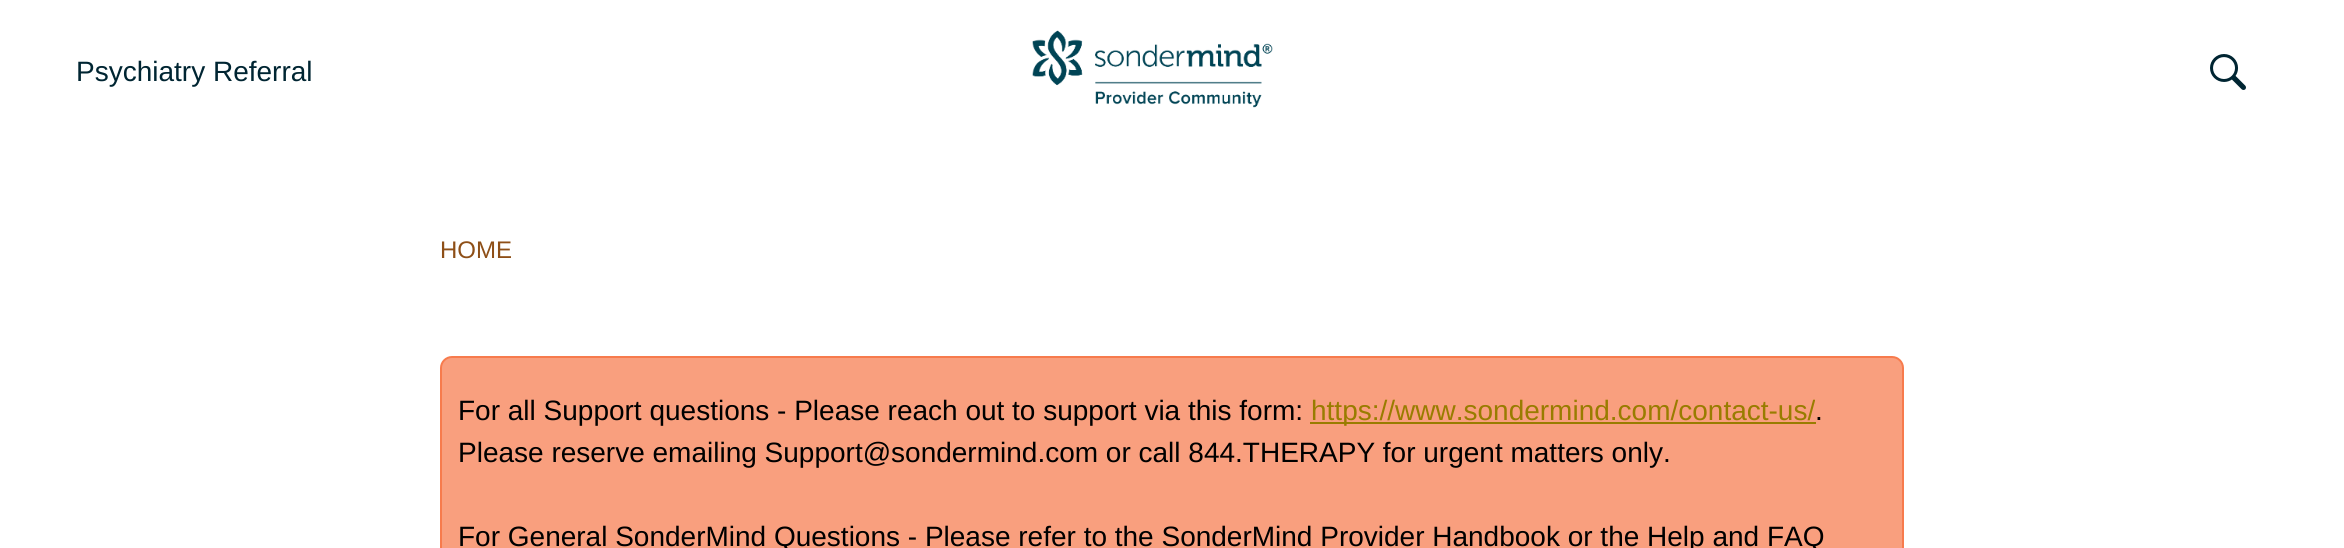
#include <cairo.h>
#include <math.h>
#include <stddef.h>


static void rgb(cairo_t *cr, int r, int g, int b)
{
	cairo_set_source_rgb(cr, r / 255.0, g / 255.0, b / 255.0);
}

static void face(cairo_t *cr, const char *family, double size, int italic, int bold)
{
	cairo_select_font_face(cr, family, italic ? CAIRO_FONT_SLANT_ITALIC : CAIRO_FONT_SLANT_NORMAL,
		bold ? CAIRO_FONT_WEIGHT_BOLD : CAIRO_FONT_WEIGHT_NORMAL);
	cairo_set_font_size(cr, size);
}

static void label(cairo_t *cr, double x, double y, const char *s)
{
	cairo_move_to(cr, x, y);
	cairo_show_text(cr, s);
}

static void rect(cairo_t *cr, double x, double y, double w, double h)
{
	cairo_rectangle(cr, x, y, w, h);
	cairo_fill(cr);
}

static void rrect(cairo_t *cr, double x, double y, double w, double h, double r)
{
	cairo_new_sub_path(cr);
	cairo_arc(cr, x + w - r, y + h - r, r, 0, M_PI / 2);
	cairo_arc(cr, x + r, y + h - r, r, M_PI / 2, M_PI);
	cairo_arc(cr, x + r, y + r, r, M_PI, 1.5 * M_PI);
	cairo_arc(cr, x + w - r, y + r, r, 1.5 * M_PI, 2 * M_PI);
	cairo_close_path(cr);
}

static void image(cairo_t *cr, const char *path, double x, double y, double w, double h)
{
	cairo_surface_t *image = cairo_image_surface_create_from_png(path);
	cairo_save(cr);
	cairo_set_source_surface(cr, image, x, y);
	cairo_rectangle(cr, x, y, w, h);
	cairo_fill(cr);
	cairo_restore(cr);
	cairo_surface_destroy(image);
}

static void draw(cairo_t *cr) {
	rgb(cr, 255, 255, 255);
	cairo_paint(cr);
	face(cr, "Liberation Sans", 28, 0, 0);
	rgb(cr, 0, 37, 50);
	label(cr, 76, 81, "Psychiatry Referral");
	image(cr, "image0.png", 1032, 30, 241, 78);
	image(cr, "image1.png", 2210, 54, 36, 36);
	face(cr, "Liberation Sans", 24, 0, 0);
	rgb(cr, 142, 79, 23);
	label(cr, 440, 258, "HOME");
	rgb(cr, 249, 159, 126);
	rrect(cr, 441, 357, 1462, 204, 11);
	cairo_fill_preserve(cr);
	rgb(cr, 247, 123, 77);
	cairo_stroke(cr);
	face(cr, "Liberation Sans", 28, 0, 0);
	rgb(cr, 0, 0, 0);
	label(cr, 458, 420, "For all Support questions - Please reach out to support via this form:");
	rgb(cr, 153, 124, 0);
	rect(cr, 1310, 422, 506, 2);
	label(cr, 1311, 420, "https://www.sondermind.com/contact-us/");
	rgb(cr, 0, 0, 0);
	label(cr, 1815, 420, ".");
	label(cr, 458, 462, "Please reserve emailing Support@sondermind.com or call 844.THERAPY for urgent matters only.");
	label(cr, 458, 546, "For General SonderMind Questions - Please refer to the SonderMind Provider Handbook or the Help and FAQ");
}

int main(void) {
	cairo_surface_t *surface = cairo_image_surface_create(CAIRO_FORMAT_RGB24, 2344, 548);
	cairo_t *cr = cairo_create(surface);
	cairo_font_options_t *options = cairo_font_options_create();
	cairo_font_options_set_hint_metrics(options, CAIRO_HINT_METRICS_OFF);
	cairo_font_options_set_hint_style(options, CAIRO_HINT_STYLE_NONE);
	cairo_set_font_options(cr, options);
	cairo_set_miter_limit(cr, 4);
	draw(cr);
	cairo_surface_write_to_png(surface, "render.png");
	cairo_font_options_destroy(options);
	cairo_destroy(cr);
	cairo_surface_destroy(surface);
	return 0;
}
